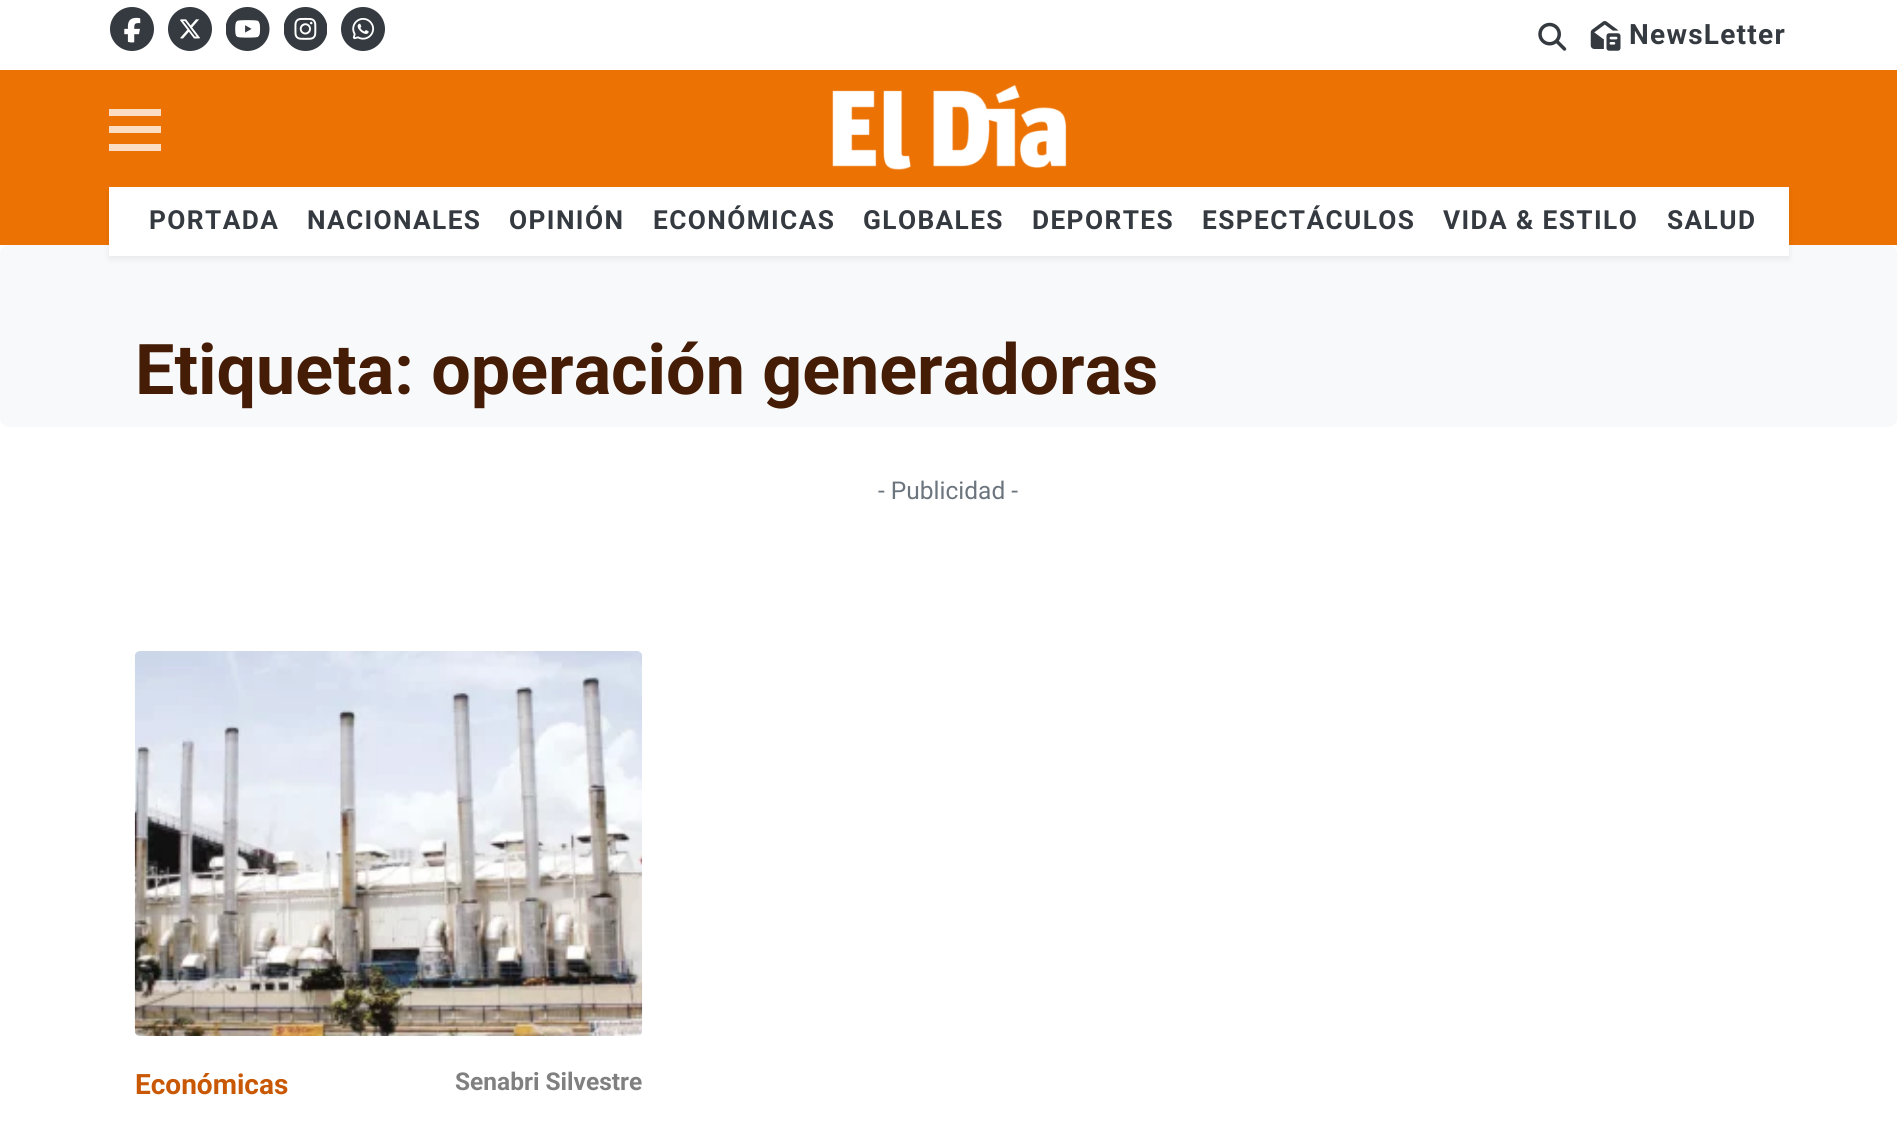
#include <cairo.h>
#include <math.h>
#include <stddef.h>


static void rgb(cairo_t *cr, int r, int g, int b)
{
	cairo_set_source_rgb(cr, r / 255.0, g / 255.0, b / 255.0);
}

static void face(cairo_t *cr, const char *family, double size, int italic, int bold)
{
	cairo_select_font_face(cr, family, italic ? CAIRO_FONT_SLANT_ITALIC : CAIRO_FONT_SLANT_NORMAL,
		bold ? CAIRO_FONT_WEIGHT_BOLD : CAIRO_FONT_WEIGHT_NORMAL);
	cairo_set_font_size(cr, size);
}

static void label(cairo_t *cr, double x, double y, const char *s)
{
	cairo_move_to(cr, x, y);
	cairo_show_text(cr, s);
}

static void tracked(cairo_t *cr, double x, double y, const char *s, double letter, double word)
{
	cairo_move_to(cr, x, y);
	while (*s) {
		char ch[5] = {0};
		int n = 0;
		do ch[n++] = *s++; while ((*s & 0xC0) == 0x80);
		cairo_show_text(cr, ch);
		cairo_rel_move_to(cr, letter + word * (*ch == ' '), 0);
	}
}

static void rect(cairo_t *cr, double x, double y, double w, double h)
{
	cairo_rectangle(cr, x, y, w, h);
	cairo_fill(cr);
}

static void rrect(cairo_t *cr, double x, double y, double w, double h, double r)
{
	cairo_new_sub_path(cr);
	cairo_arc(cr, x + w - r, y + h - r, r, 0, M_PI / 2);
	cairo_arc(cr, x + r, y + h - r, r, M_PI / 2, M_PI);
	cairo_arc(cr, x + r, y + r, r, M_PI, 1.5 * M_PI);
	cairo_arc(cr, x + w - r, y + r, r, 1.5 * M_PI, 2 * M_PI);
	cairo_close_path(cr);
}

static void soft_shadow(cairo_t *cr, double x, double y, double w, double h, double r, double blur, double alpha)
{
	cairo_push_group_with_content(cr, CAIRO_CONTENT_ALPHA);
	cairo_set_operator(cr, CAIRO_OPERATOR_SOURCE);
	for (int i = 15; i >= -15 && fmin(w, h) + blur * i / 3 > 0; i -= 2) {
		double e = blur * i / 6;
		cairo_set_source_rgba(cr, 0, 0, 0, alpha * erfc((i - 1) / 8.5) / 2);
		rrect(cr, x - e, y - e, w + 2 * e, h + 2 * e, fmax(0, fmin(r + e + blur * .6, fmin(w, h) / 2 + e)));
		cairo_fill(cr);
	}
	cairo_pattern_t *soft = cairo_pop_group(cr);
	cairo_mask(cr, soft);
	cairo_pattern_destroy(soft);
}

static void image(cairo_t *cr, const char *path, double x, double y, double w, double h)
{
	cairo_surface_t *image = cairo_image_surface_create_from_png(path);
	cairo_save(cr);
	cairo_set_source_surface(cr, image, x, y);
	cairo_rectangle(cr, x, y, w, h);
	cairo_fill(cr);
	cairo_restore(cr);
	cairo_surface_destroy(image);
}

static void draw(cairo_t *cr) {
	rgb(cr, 255, 255, 255);
	cairo_paint(cr);
	image(cr, "image0.png", 110, 7, 44, 44);
	image(cr, "image1.png", 168, 7, 44, 44);
	image(cr, "image2.png", 226, 7, 44, 44);
	image(cr, "image3.png", 284, 7, 43, 44);
	image(cr, "image4.png", 341, 7, 44, 44);
	image(cr, "image5.png", 1538, 22, 29, 29);
	image(cr, "image6.png", 1590, 21, 31, 30);
	face(cr, "Roboto", 28, 0, 1);
	rgb(cr, 52, 58, 64);
	tracked(cr, 1629, 44, "NewsLetter", 1.25, 0);
	rgb(cr, 236, 114, 3);
	rect(cr, 0, 70, 1897, 175);
	rgb(cr, 250, 221, 194);
	rect(cr, 109, 109, 52, 7);
	rect(cr, 109, 126, 52, 7);
	rect(cr, 109, 144, 52, 7);
	image(cr, "image7.png", 832, 84, 235, 86);
	rgb(cr, 248, 249, 250);
	rrect(cr, 0, 245, 1897, 182, 9);
	cairo_fill(cr);
	rgb(cr, 0, 0, 0);
	soft_shadow(cr, 109, 191, 1680, 68, 0, 3.5, 0.07);
	rgb(cr, 255, 255, 255);
	rect(cr, 109, 187, 1680, 69);
	face(cr, "Roboto", 26.25, 0, 1);
	rgb(cr, 52, 58, 64);
	tracked(cr, 149, 229, "PORTADA", 1.4, 0);
	tracked(cr, 307, 229, "NACIONALES", 1.4, 0);
	tracked(cr, 509, 229, "OPINIÓN", 1.4, 0);
	tracked(cr, 653, 229, "ECONÓMICAS", 1.4, 0);
	tracked(cr, 863, 229, "GLOBALES", 1.4, 0);
	tracked(cr, 1032, 229, "DEPORTES", 1.4, 0);
	tracked(cr, 1202, 229, "ESPECTÁCULOS", 1.4, 0);
	tracked(cr, 1443, 229, "VIDA & ESTILO", 1.4, 0);
	tracked(cr, 1667, 229, "SALUD", 1.4, 0);
	face(cr, "Roboto", 70, 0, 1);
	rgb(cr, 69, 28, 5);
	label(cr, 135, 394, "Etiqueta: operación generadoras");
	face(cr, "Roboto", 24.5, 0, 0);
	rgb(cr, 108, 117, 125);
	label(cr, 878, 499, "- Publicidad -");
	image(cr, "image8.png", 134, 651, 509, 385);
	face(cr, "Roboto", 28, 0, 1);
	rgb(cr, 201, 88, 5);
	label(cr, 135, 1094, "Económicas");
	face(cr, "Roboto", 24.5, 0, 1);
	rgb(cr, 128, 128, 128);
	label(cr, 455, 1090, "Senabri Silvestre");
}

int main(void) {
	cairo_surface_t *surface = cairo_image_surface_create(CAIRO_FORMAT_RGB24, 1897, 1124);
	cairo_t *cr = cairo_create(surface);
	cairo_font_options_t *options = cairo_font_options_create();
	cairo_font_options_set_hint_metrics(options, CAIRO_HINT_METRICS_OFF);
	cairo_font_options_set_hint_style(options, CAIRO_HINT_STYLE_NONE);
	cairo_set_font_options(cr, options);
	cairo_set_miter_limit(cr, 4);
	draw(cr);
	cairo_surface_write_to_png(surface, "render.png");
	cairo_font_options_destroy(options);
	cairo_destroy(cr);
	cairo_surface_destroy(surface);
	return 0;
}
